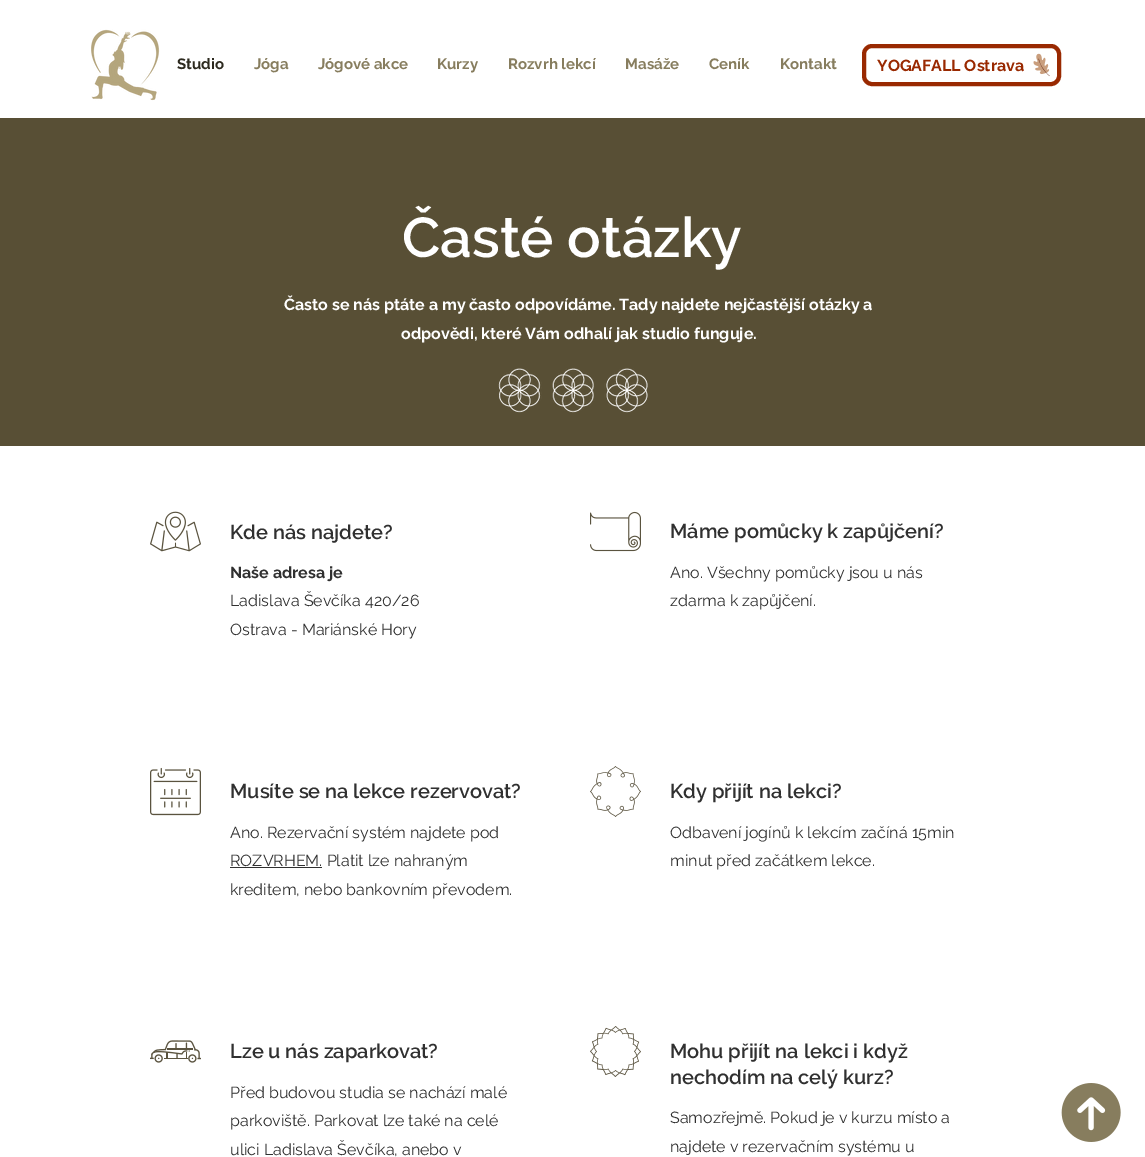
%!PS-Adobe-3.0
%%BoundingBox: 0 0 1145 1157
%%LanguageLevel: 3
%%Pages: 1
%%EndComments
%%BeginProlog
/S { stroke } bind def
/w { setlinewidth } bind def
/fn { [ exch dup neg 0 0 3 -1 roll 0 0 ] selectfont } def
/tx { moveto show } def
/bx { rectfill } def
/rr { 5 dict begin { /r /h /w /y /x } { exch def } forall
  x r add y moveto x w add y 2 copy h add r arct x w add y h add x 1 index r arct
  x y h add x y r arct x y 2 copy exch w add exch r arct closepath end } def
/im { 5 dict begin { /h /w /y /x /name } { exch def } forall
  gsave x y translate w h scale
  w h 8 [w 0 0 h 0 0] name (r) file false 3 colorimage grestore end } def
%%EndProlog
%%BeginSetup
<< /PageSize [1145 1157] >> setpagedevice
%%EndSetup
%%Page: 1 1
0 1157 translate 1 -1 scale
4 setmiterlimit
1 setgray
0 0 1145 1157 bx
(image0.raw) 91 29 69 72 im
/Raleway-Bold 15 fn
0.176 0.165 0.122 setrgbcolor
(Studio) 177 69 tx
0.529 0.49 0.369 setrgbcolor
(Jóga) 254 69 tx
(Jógové akce) 318 69 tx
(Kurzy) 437 69 tx
(Rozvrh lekcí) 508 69 tx
(Masáže) 625 69 tx
(Ceník) 709 69 tx
(Kontakt) 780 69 tx
0.6 0.161 0.004 setrgbcolor
4 w
864 46 195 38 8 rr S
/Raleway-Bold 16 fn
(YOGAFALL Ostrava) 877 71 tx
(image1.raw) 1033 53 17 24 im
0.345 0.31 0.208 setrgbcolor
0 118 1145 328 bx
/Raleway-SemiBold 56 fn
1 setgray
(Časté otázky) 402 257 tx
/Raleway-Bold 16 fn
(Často se nás ptáte a my často odpovídáme. Tady najdete nejčastější otázky a) 284 310 tx
(odpovědi, které Vám odhalí jak studio funguje.) 401 339 tx
(image2.raw) 498 368 150 45 im
(image3.raw) 150 511 51 41 im
/Raleway-SemiBold 20 fn
0.188 setgray
(Kde nás najdete?) 230 539 tx
/Raleway-Bold 16 fn
(Naše adresa je) 230 578 tx
/Raleway-Regular 16 fn
(Ladislava Ševčíka 420/26) 230 606 tx
(Ostrava - Mariánské Hory) 230 635 tx
(image4.raw) 150 767 51 49 im
/Raleway-SemiBold 20 fn
(Musíte se na lekce rezervovat?) 230 798 tx
/Raleway-Regular 16 fn
(Ano. Rezervační systém najdete pod) 230 838 tx
230 867 92 1 bx
(ROZVRHEM. Platit lze nahraným) 230 866 tx
(kreditem, nebo bankovním převodem.) 230 895 tx
(image5.raw) 150 1040 51 23 im
/Raleway-SemiBold 20 fn
(Lze u nás zaparkovat?) 230 1058 tx
/Raleway-Regular 16 fn
(Před budovou studia se nachází malé) 230 1098 tx
(parkoviště. Parkovat lze také na celé) 230 1126 tx
(ulici Ladislava Ševčíka, anebo v) 230 1155 tx
(image6.raw) 590 511 51 41 im
/Raleway-SemiBold 20 fn
(Máme pomůcky k zapůjčení?) 670 538 tx
/Raleway-Regular 16 fn
(Ano. Všechny pomůcky jsou u nás) 670 578 tx
(zdarma k zapůjčení.) 670 606 tx
(image7.raw) 590 766 51 51 im
/Raleway-SemiBold 20 fn
(Kdy přijít na lekci?) 670 798 tx
/Raleway-Regular 16 fn
(Odbavení jogínů k lekcím začíná 15min) 670 838 tx
(minut před začátkem lekce.) 670 866 tx
(image8.raw) 590 1026 51 51 im
/Raleway-SemiBold 20 fn
(Mohu přijít na lekci i když) 670 1058 tx
(nechodím na celý kurz?) 670 1084 tx
/Raleway-Regular 16 fn
(Samozřejmě. Pokud je v kurzu místo a) 670 1123 tx
(najdete v rezervačním systému u) 670 1152 tx
(image9.raw) 1061 1083 60 59 im
showpage
%%EOF
